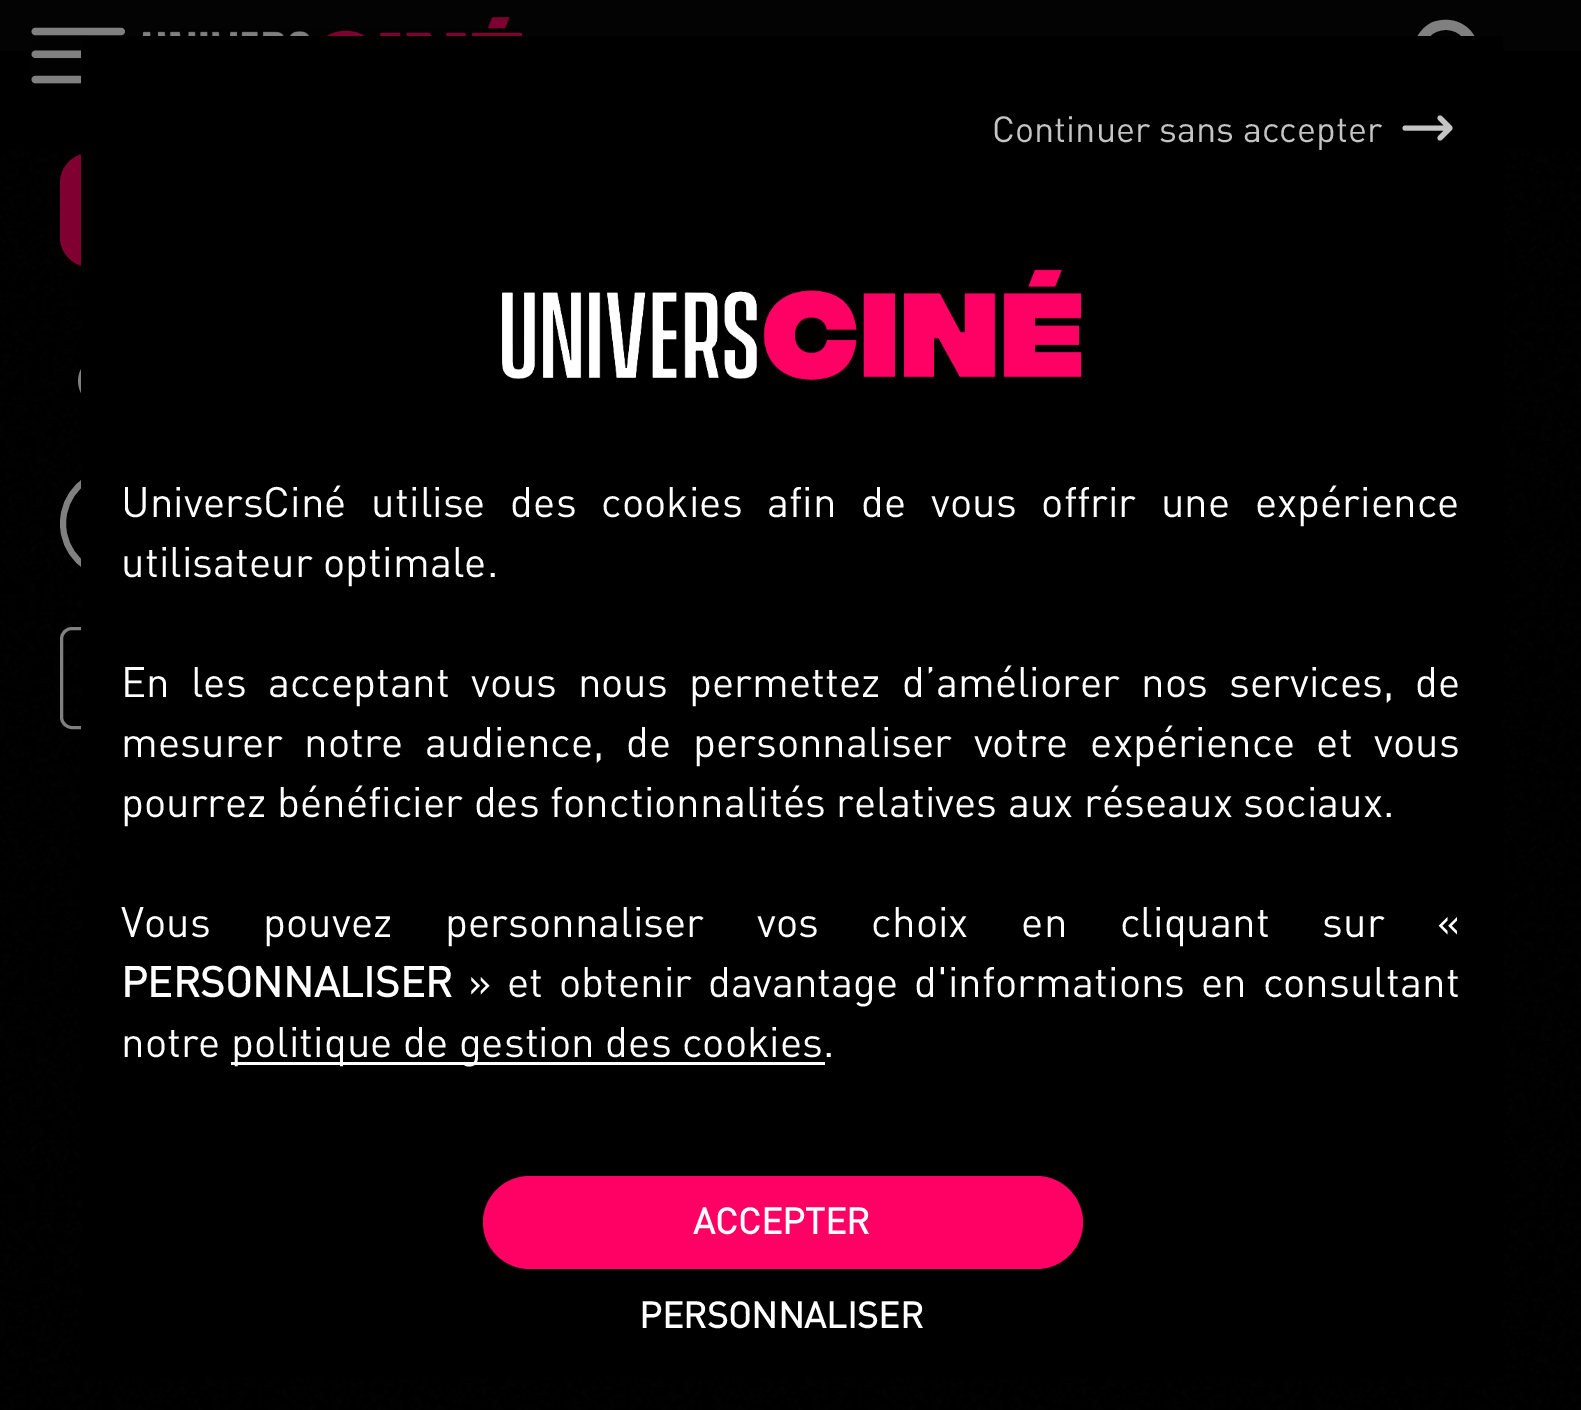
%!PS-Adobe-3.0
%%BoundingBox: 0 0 1581 1410
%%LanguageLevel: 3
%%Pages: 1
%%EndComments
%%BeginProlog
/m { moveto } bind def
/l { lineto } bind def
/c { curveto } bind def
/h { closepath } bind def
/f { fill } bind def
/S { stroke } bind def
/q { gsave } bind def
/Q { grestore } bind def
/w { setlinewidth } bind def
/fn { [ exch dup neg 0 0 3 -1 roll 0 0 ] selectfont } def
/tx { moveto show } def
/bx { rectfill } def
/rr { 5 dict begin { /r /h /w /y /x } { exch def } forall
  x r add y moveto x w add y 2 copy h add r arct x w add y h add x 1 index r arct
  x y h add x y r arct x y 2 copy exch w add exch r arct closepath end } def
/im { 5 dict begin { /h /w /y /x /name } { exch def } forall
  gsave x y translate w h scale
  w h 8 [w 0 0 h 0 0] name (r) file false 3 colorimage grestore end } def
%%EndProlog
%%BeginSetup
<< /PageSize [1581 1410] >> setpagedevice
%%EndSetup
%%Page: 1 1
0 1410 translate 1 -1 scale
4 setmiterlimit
0 setgray
0 0 1581 1410 bx
q 0 0 m 1581 0 l 1581 51 l 0 51 l h clip newpath
<< /ShadingType 2 /ColorSpace /DeviceRGB /Coords [791 0 791 135] /Extend [true true] /Function << /FunctionType 2 /Domain [0 1] /C0 [0.016 0.016 0.016] /C1 [0 0 0] /N 1 >> >> shfill Q
(image0.raw) 31 27 94 57 im
(image1.raw) 143 17 380 19 im
0.502 setgray
1486 83 m 1473 70 l 1484 54 1478 31 1460 23 c 1452 19 1442 19 1433 22 c 1426 25 1421 30 1417 37 c 1401 67 1435 98 1464 80 c 1472 89 l 1476 92 1479 97 1484 94 c 1486 93 1487 92 1488 90 c 1488 88 1488 87 1487 85 c h 1446 75 m 1416 75 1416 30 1446 30 c 1475 30 1475 75 1446 75 c h f
(image3.raw) 0 150 1581 1260 im
0.502 0 0.196 setrgbcolor
60 153 204 114 30 rr f
0 setgray
63 471 264 105 52.5 rr q f Q
0.502 setgray
6 w
S
3 w
61.5 628.5 288 99 10.5 rr S
0 setgray
81 36 1422 1341 bx
/DIN-Regular 36 fn
0.769 setgray
(Continuer sans accepter) 992 142 tx
5 w
1 setlinecap
1 setlinejoin
1440 118 m 1450 128 l 1450 128 m 1440 138 l 1450 128 m 1405 128 l S
(image2.raw) 502 269 580 111 im
/DIN-Regular 42 fn
1 setgray
121 517 m 14.25 0 32 (UniversCiné utilise des cookies afin de vous offrir une expérience) widthshow
(utilisateur optimale.) 121 577 tx
121 697 m 10.75 0 32 (En les acceptant vous nous permettez d’améliorer nos services, de) widthshow
121 757 m 11.25 0 32 (mesurer notre audience, de personnaliser votre expérience et vous) widthshow
(pourrez bénéficier des fonctionnalités relatives aux réseaux sociaux.) 121 817 tx
121 937 m 42.25 0 32 (Vous pouvez personnaliser vos choix en cliquant sur «) widthshow
/DIN-Bold 42 fn
(PERSONNALISER) 121 997 tx
/DIN-Regular 42 fn
468 997 m 5.25 0 32 (» et obtenir davantage d'informations en consultant) widthshow
(notre) 121 1057 tx
231 1062 594 3 bx
(politique de gestion des cookies.) 231 1057 tx
1 0 0.392 setrgbcolor
483 1176 600 93 46.5 rr f
/DIN-Bold 36 fn
1 setgray
(ACCEPTER) 693 1234 tx
(PERSONNALISER) 639 1328 tx
(image4.raw) 78 369 3 24 im
showpage
%%EOF
